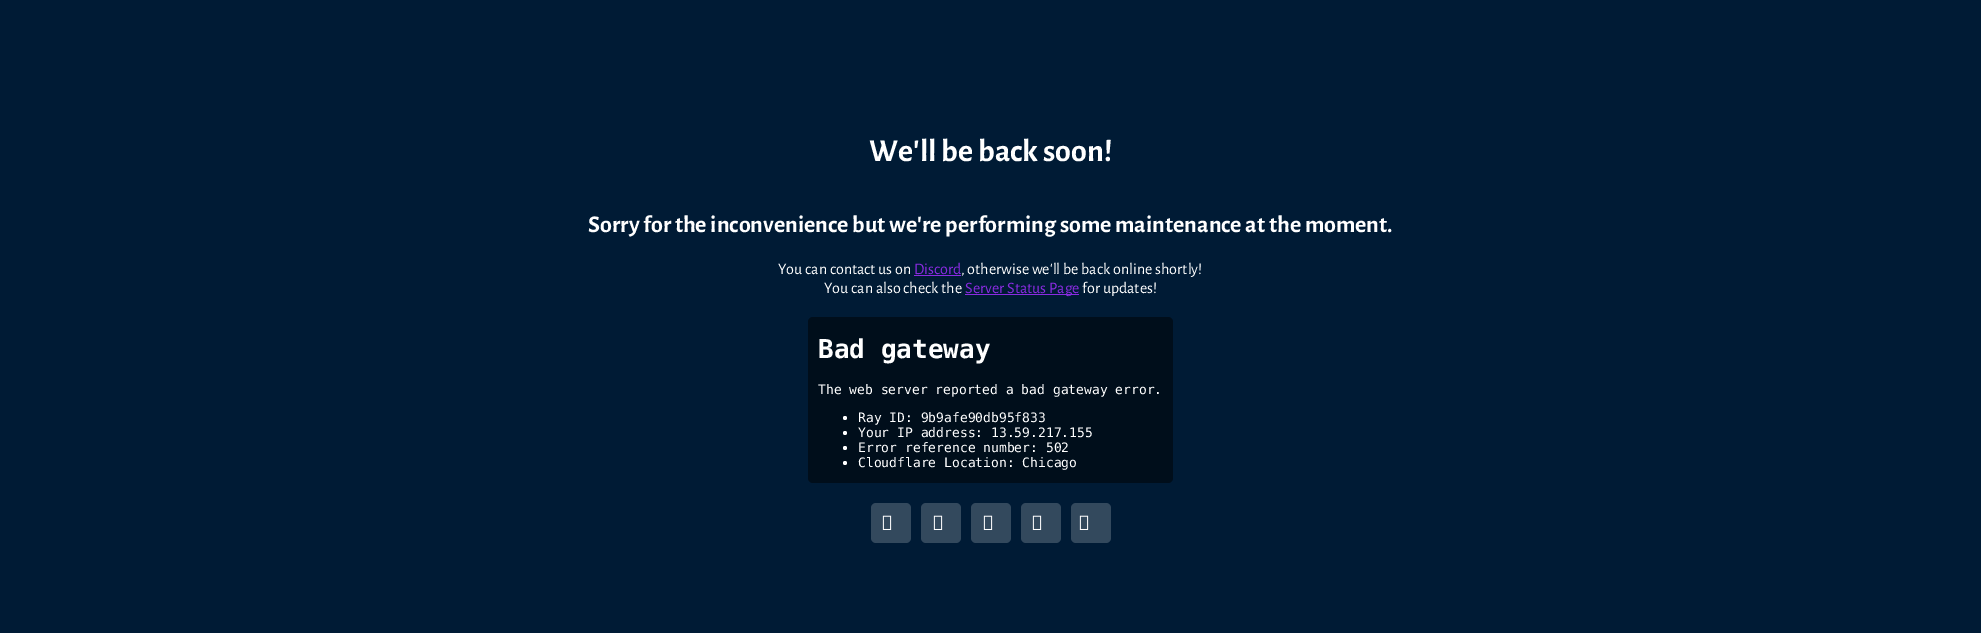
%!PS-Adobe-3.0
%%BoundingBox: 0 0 1981 633
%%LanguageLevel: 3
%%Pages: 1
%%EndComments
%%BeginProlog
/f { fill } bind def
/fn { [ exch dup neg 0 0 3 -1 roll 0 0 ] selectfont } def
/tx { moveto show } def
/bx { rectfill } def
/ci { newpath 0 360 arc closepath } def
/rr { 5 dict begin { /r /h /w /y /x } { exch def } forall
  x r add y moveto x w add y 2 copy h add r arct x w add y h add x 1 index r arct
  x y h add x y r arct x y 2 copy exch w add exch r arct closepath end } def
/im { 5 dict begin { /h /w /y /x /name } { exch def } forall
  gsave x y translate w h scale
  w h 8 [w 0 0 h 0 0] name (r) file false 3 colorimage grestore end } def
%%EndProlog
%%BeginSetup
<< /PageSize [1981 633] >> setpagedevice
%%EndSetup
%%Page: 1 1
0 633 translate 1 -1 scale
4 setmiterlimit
0 0.106 0.208 setrgbcolor
0 0 1981 633 bx
/AlegreyaSans-Bold 32 fn
1 setgray
(We'll be back soon!) 869 161 tx
/AlegreyaSans-Bold 24 fn
(Sorry for the inconvenience but we're performing some maintenance at the moment.) 588 232 tx
/AlegreyaSans-Regular 16 fn
(You can contact us on) 778 274 tx
0.541 0.169 0.886 setrgbcolor
(Discord) 914 274 tx
914 275 47 1 bx
1 setgray
(, otherwise we'll be back online shortly!) 961 274 tx
(You can also check the) 824 293 tx
0.541 0.169 0.886 setrgbcolor
965 294 114 1 bx
(Server Status Page) 965 293 tx
1 setgray
(for updates!) 1082 293 tx
0 0.055 0.106 setrgbcolor
808 317 365 166 5 rr f
/DejaVuSansMono-Bold 26 fn
1 setgray
(Bad gateway) 818 358 tx
/DejaVuSansMono-Regular 13 fn
(The web server reported a bad gateway error.) 818 394 tx
845 418 2 ci f
(Ray ID: 9b9afe90db95f833) 858 422 tx
845 433 2 ci f
(Your IP address: 13.59.217.155) 858 437 tx
845 448 2 ci f
(Error reference number: 502) 858 452 tx
845 463 2 ci f
(Cloudflare Location: Chicago) 858 467 tx
0.2 0.286 0.365 setrgbcolor
871 503 40 40 5 rr f
(image0.raw) 882 515 10 15 im
921 503 40 40 5 rr f
(image0.raw) 933 515 10 15 im
971 503 40 40 5 rr f
(image0.raw) 983 515 10 15 im
1021 503 40 40 5 rr f
(image0.raw) 1032 515 10 15 im
1071 503 40 40 5 rr f
(image0.raw) 1079 515 10 15 im
showpage
%%EOF
